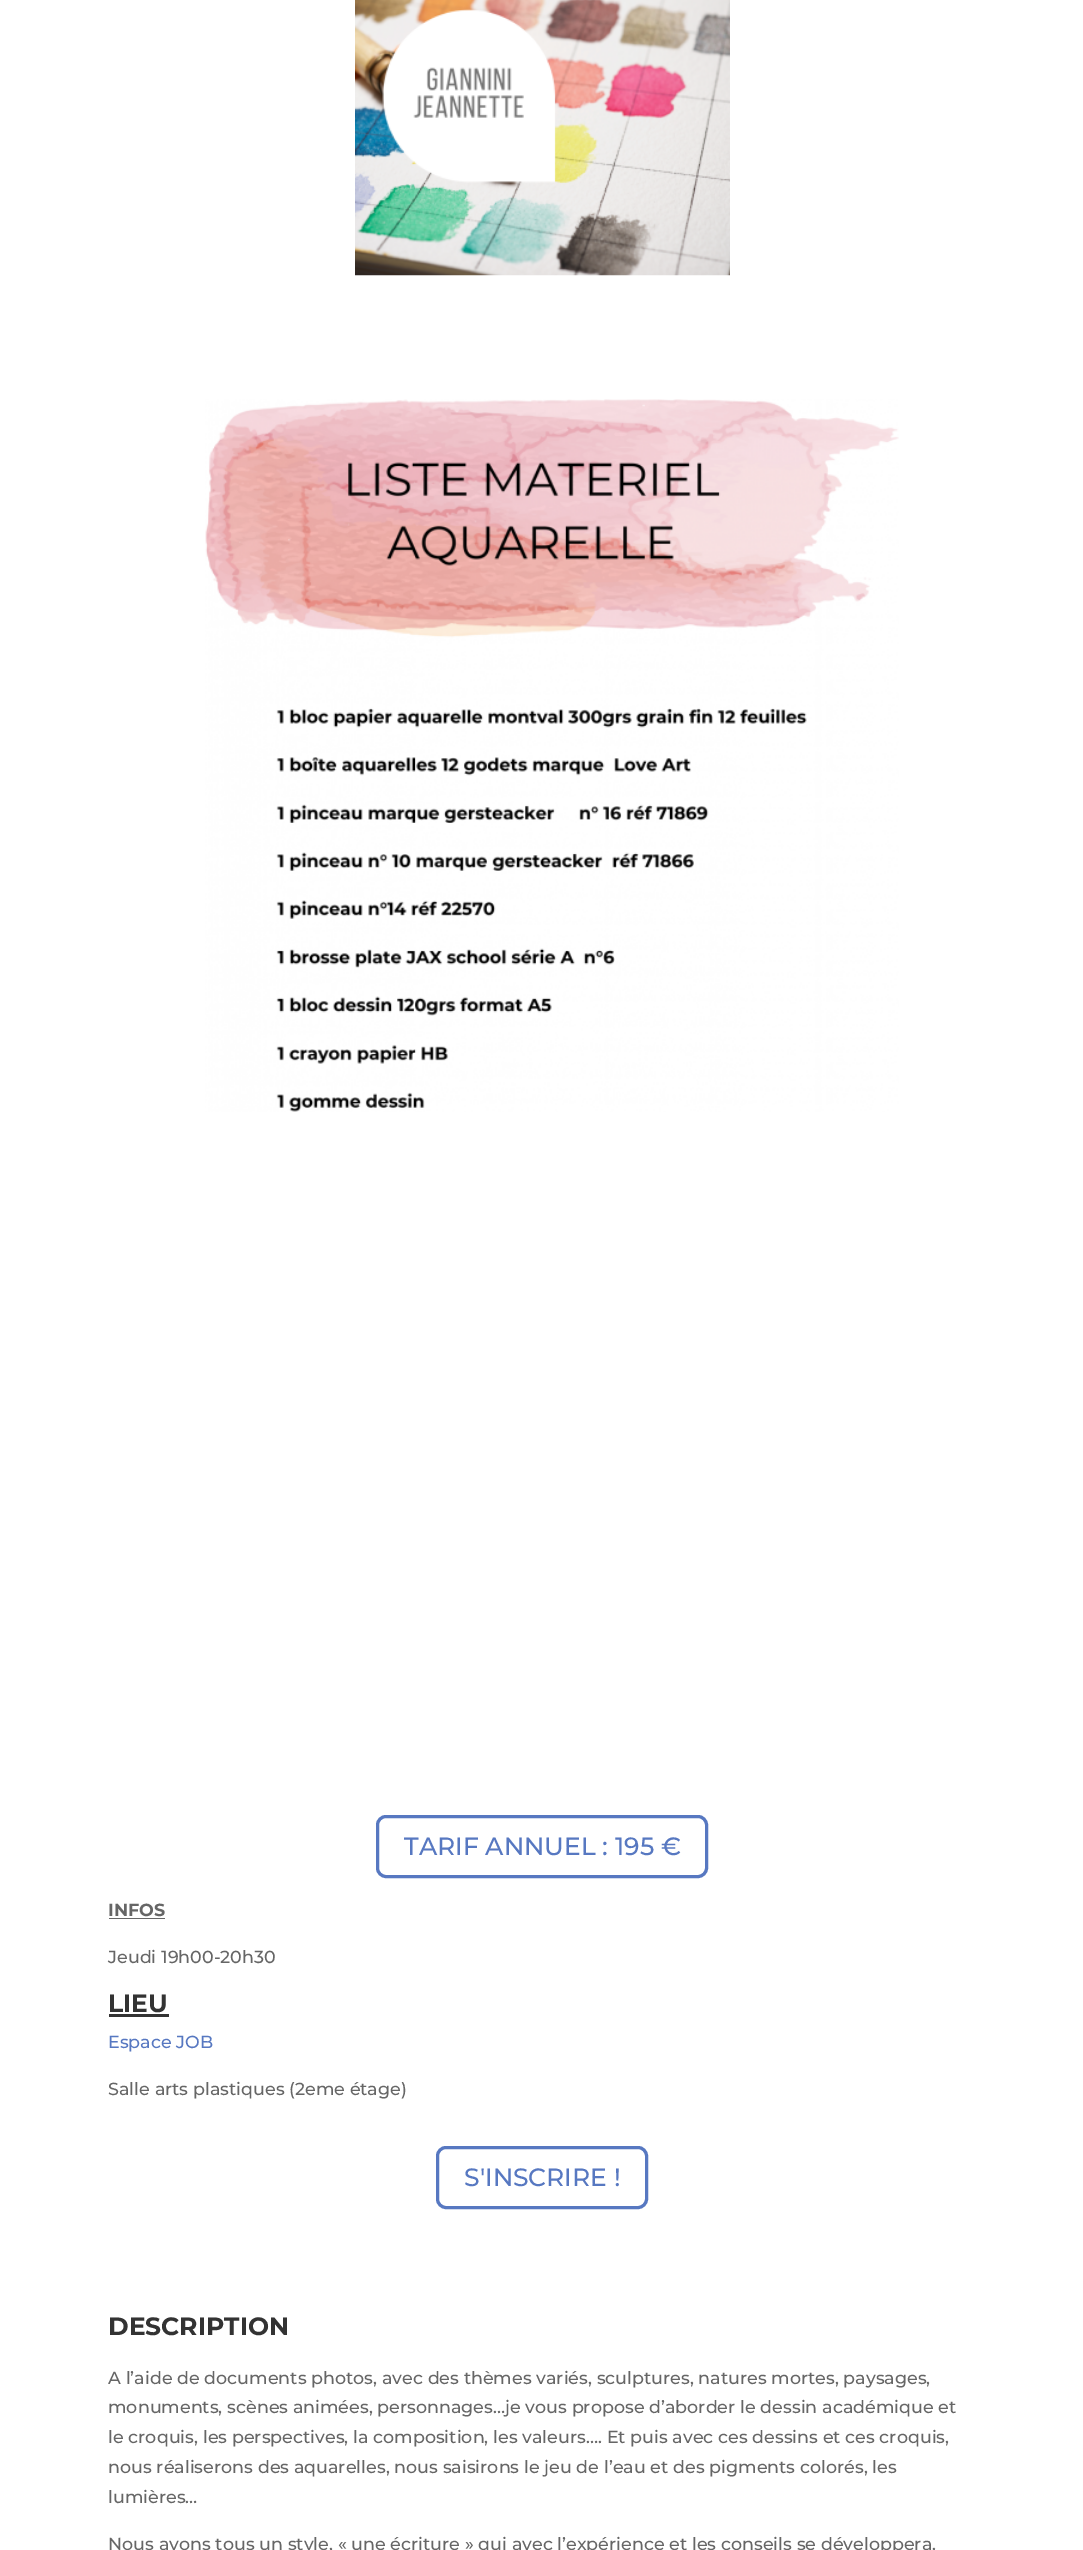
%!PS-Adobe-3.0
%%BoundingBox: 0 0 1083 2550
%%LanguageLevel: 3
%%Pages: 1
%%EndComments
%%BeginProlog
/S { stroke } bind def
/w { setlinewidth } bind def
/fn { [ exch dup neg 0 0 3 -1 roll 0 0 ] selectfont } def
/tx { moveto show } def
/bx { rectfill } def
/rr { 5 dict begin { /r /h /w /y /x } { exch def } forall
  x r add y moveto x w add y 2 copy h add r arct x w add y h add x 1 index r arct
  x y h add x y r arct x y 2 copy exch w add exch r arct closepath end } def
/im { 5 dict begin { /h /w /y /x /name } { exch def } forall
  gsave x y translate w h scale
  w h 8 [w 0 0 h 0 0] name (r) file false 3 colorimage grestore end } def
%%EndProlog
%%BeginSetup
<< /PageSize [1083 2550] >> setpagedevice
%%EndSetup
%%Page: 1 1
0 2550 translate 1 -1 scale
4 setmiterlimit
1 setgray
0 0 1083 2550 bx
(image0.raw) 355 0 375 276 im
(image1.raw) 205 399 694 713 im
0.341 0.471 0.757 setrgbcolor
3 w
377.5 1816.5 329 60 8.5 rr S
/Montserrat-Thin 25 fn
(TARIF ANNUEL : 195 €) 404 1855 tx
/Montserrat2-Thin 17.5 fn
0.4 setgray
(INFOS) 108 1916 tx
109 1918 56 1 bx
/Montserrat-Thin 17.5 fn
(Jeudi 19h00-20h30) 108 1963 tx
/Montserrat2-Thin 25 fn
0.2 setgray
(LIEU) 108 2012 tx
109 2014 60 3 bx
/Montserrat-Thin 17.5 fn
0.341 0.471 0.757 setrgbcolor
(Espace JOB) 108 2048 tx
0.4 setgray
(Salle arts plastiques \(2eme étage\)) 108 2095 tx
0.341 0.471 0.757 setrgbcolor
437.5 2147.5 209 60 8.5 rr S
/Montserrat-Thin 25 fn
(S'INSCRIRE !) 464 2186 tx
/Montserrat2-Thin 25 fn
0.2 setgray
(DESCRIPTION) 108 2335 tx
/Montserrat-Thin 17.5 fn
0.4 setgray
(A l’aide de documents photos, avec des thèmes variés, sculptures, natures mortes, paysages,) 108 2384 tx
(monuments, scènes animées, personnages…je vous propose d’aborder le dessin académique et) 108 2413 tx
(le croquis, les perspectives, la composition, les valeurs…. Et puis avec ces dessins et ces croquis,) 108 2443 tx
(nous réaliserons des aquarelles, nous saisirons le jeu de l’eau et des pigments colorés, les) 108 2473 tx
(lumières…) 108 2503 tx
(Nous avons tous un style, « une écriture » qui avec l’expérience et les conseils se développera.) 108 2550 tx
showpage
%%EOF
